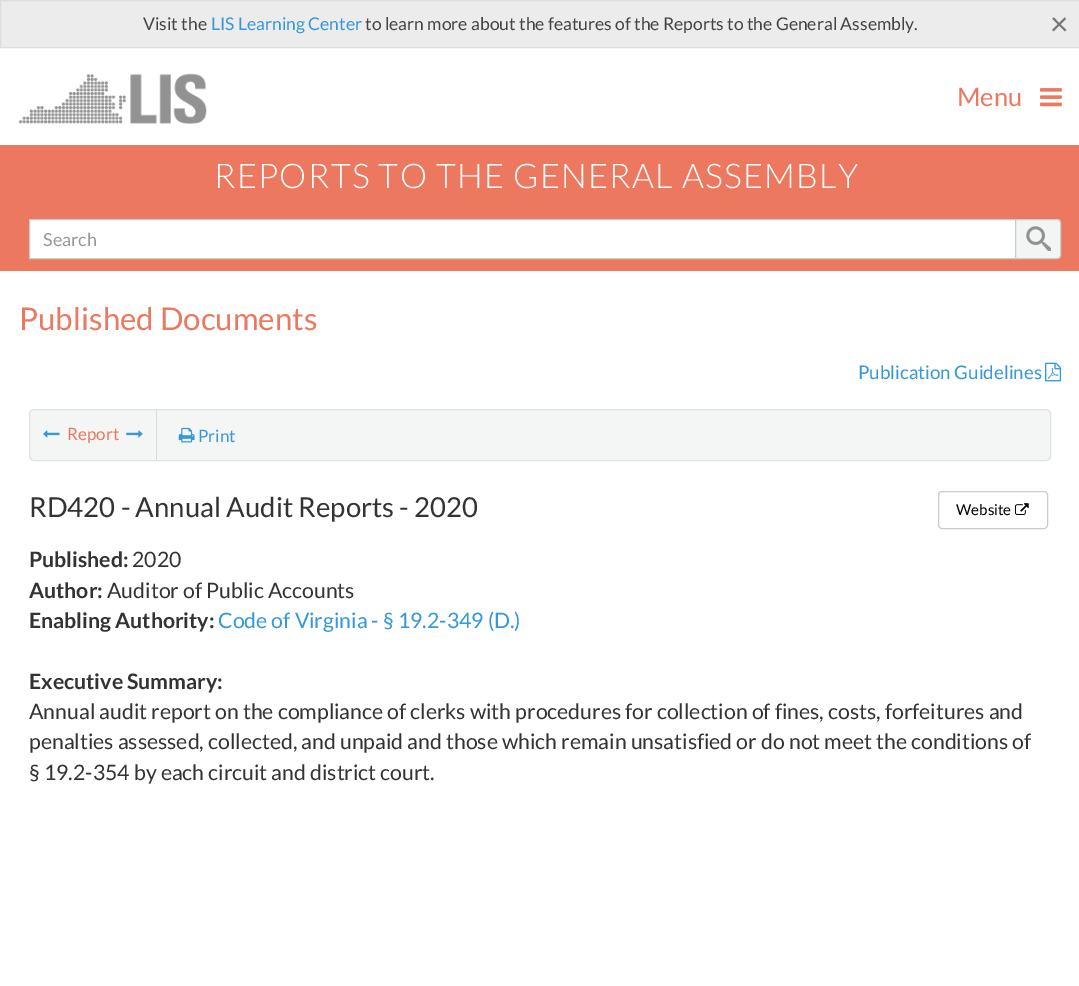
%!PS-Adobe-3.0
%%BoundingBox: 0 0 1079 986
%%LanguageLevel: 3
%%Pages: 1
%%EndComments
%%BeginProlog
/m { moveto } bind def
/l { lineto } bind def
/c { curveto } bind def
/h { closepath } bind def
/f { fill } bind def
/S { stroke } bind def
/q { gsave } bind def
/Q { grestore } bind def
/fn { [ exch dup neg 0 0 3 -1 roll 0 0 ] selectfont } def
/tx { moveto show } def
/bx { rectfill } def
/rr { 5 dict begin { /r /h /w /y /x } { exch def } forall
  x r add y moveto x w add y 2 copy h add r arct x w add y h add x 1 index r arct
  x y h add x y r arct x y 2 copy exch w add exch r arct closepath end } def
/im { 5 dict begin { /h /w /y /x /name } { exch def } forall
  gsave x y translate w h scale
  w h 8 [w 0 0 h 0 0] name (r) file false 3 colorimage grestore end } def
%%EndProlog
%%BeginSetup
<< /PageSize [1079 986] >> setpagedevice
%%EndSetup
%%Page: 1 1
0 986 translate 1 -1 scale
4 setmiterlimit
1 setgray
0 0 1079 986 bx
0.925 setgray
0.5 0.5 m 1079.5 0.5 l 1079.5 47.5 l 0.5 47.5 l h q f Q
0.851 0.878 0.855 setrgbcolor
S
/Lato-Regular 17.5 fn
0.267 setgray
(Visit the) 143 30 tx
0.204 0.596 0.859 setrgbcolor
(LIS Learning Center) 211 30 tx
0.267 setgray
(to learn more about the features of the Reports to the General Assembly.) 365 30 tx
/Lato-Regular 32 fn
0.463 setgray
(×) 1050 35 tx
(image0.raw) 18 73 189 51 im
/Lato-Regular 25.5 fn
0.925 0.471 0.373 setrgbcolor
(Menu) 957 106 tx
(image1.raw) 1040 88 22 19 im
0 145 1079 126 bx
/Lato-Light 34 fn
1 setgray
214 188 m 1.25 0 (REPORTS TO THE GENERAL ASSEMBLY) ashow
29.5 219.5 m 1015.5 219.5 l 1015.5 258.5 l 29.5 258.5 l h q f Q
0.8 setgray
S
/Lato-Regular 18 fn
0.6 setgray
(Search) 43 246 tx
0.953 0.961 0.961 setrgbcolor
1015 219 m 1057 219 l 1059 219 1061 221 1061 223 c 1061 255 l 1061 257 1059 259 1057 259 c 1015 259 l h f
(image2.raw) 1026 226 25 25 im
0.8 setgray
1015.5 219.5 m 1057 219.5 l 1059 219.5 1060.5 221 1060.5 223 c 1060.5 255 l 1060.5 257 1059 258.5 1057 258.5 c 1015.5 258.5 l h S
/Lato-Regular 31.25 fn
0.925 0.471 0.373 setrgbcolor
(Published Documents) 19 330 tx
/Lato-Regular 18.75 fn
0.204 0.596 0.859 setrgbcolor
(Publication Guidelines) 858 379 tx
(image3.raw) 1045 362 17 20 im
0.957 0.961 0.961 setrgbcolor
29.5 409.5 1021 51 4.5 rr q f Q
0.871 0.886 0.89 setrgbcolor
S
0.855 setgray
156 410 1 50 bx
(image4.raw) 43 430 17 8 im
/Lato-Regular 17 fn
0.925 0.471 0.373 setrgbcolor
(Report) 67 440 tx
(image5.raw) 126 430 17 8 im
(image6.raw) 178 427 17 16 im
0.204 0.596 0.859 setrgbcolor
(Print) 198 442 tx
/Lato-Regular 27.5 fn
0.2 setgray
(RD420 - Annual Audit Reports - 2020) 29 517 tx
0.8 setgray
938.5 491.5 109 37 3.5 rr S
/Lato-Regular 15 fn
0 setgray
(Website) 956 515 tx
(image7.raw) 1015 503 14 12 im
/Lato-Bold 21.25 fn
0.2 setgray
(Published:) 29 567 tx
/Lato-Regular 21.25 fn
(2020) 132 567 tx
/Lato-Bold 21.25 fn
(Author:) 29 598 tx
/Lato-Regular 21.25 fn
(Auditor of Public Accounts) 107 598 tx
/Lato-Bold 21.25 fn
(Enabling Authority:) 29 628 tx
/Lato-Regular 21.25 fn
0.204 0.596 0.859 setrgbcolor
(Code of Virginia - § 19.2-349 \(D.\)) 218 628 tx
/Lato-Bold 21.25 fn
0.2 setgray
(Executive Summary:) 29 689 tx
/Lato-Regular 21.25 fn
(Annual audit report on the compliance of clerks with procedures for collection of fines, costs, forfeitures and) 29 719 tx
(penalties assessed, collected, and unpaid and those which remain unsatisfied or do not meet the conditions of) 29 749 tx
(§ 19.2-354 by each circuit and district court.) 29 780 tx
showpage
%%EOF
